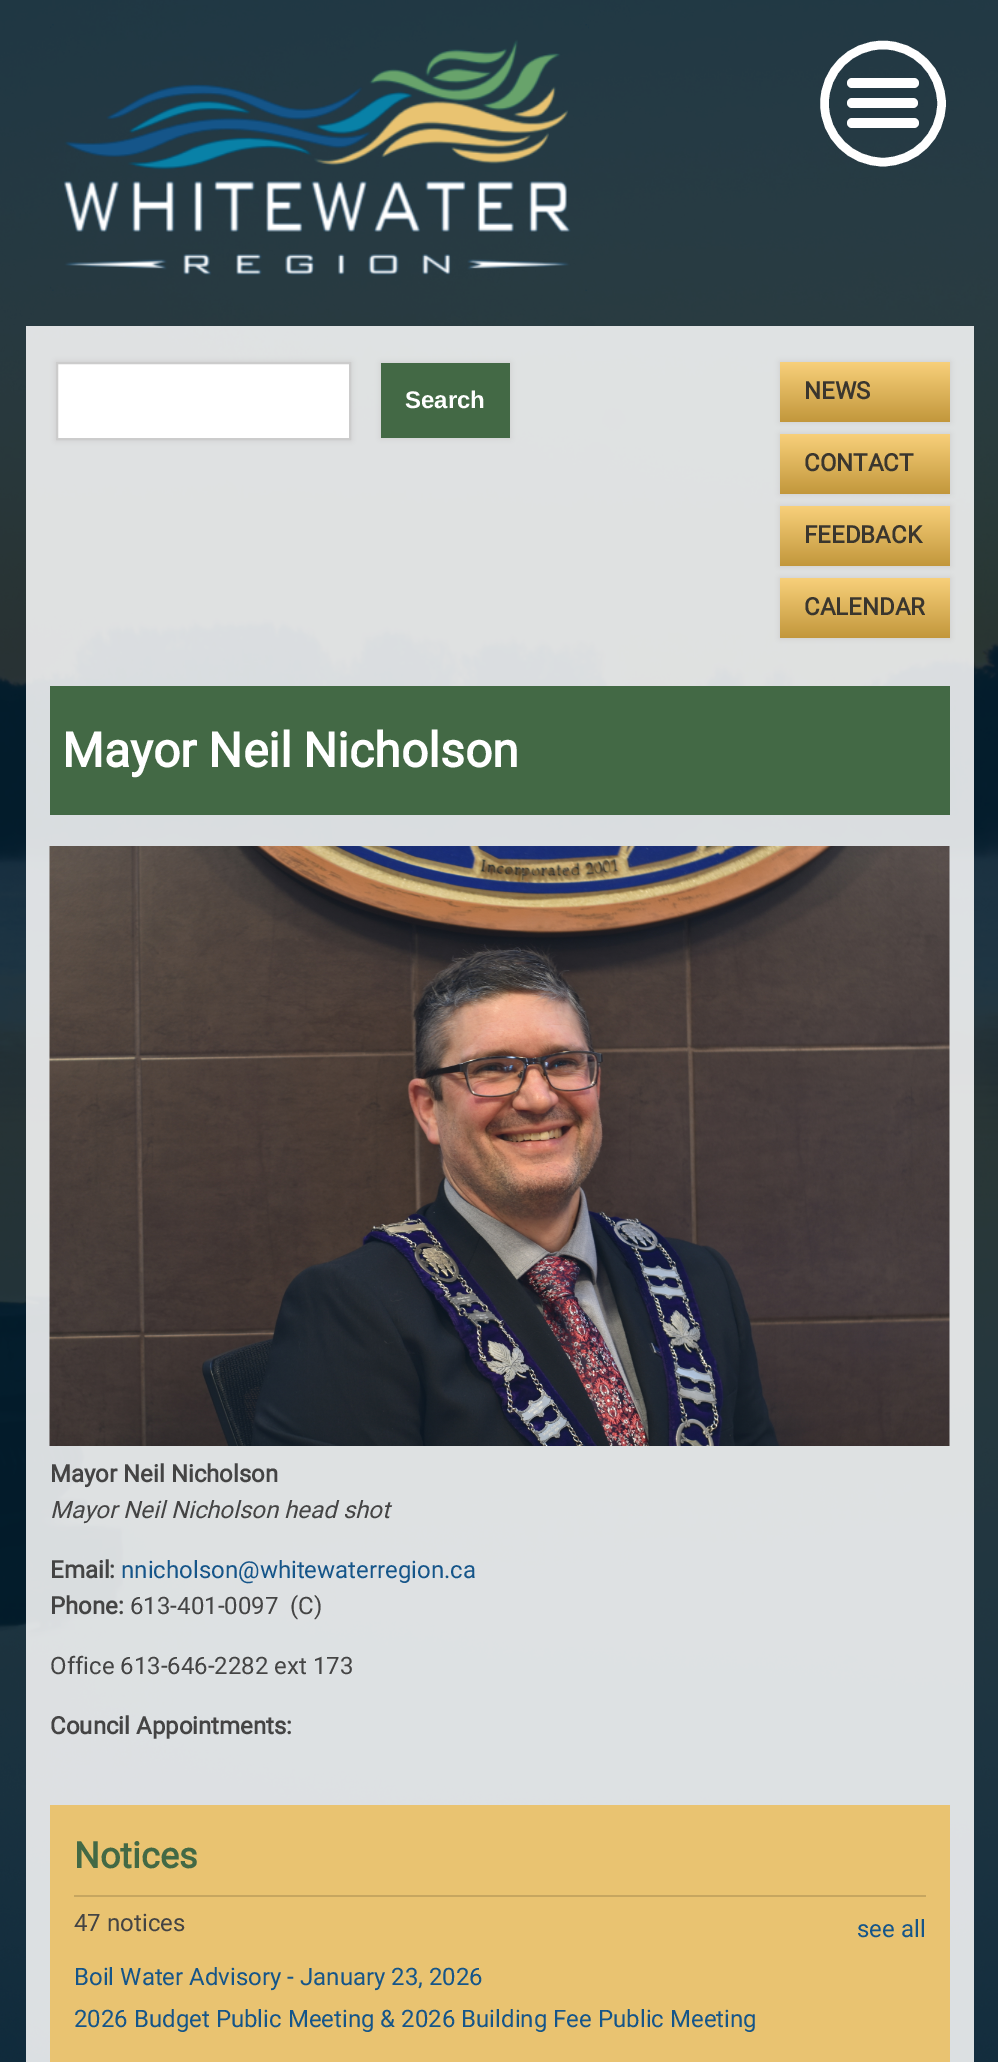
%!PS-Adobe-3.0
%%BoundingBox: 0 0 998 2062
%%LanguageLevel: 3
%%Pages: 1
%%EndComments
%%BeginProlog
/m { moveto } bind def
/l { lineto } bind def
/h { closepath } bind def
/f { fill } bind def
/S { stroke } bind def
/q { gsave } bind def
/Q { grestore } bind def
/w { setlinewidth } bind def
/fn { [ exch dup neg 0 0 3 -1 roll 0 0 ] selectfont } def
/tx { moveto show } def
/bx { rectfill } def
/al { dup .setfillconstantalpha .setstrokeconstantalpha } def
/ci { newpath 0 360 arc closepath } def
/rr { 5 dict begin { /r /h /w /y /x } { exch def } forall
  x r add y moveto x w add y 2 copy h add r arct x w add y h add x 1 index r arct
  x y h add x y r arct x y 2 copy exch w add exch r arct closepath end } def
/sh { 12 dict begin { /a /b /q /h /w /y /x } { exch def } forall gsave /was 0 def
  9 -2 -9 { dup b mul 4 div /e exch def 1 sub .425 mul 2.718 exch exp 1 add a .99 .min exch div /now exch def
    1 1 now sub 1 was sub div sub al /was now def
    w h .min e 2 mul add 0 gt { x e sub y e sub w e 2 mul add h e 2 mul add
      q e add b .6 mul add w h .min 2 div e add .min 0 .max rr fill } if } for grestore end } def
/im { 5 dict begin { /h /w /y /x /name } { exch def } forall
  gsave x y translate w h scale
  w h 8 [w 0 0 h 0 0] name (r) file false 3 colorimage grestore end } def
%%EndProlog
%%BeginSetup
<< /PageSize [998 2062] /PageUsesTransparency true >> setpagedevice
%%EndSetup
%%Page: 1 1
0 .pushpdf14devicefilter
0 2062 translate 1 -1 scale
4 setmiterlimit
1 setgray
0 0 998 2062 bx
(image0.raw) 0 0 998 2062 im
(image1.raw) 50 24 539 267 im
8.5 w
883 103.5 58.5 ci S
847 78 72 10 5 rr f
847 98 71 10 5 rr f
847 118 72 10 5 rr f
0.85 al
26 326 948 1736 bx
1 al
0.8 setgray
56 362 295 78 0 3 1 sh
1 setgray
57 363 m 350 363 l 350 439 l 57 439 l h q f Q
0.8 setgray
2 w
S
381 363 129 75 0 3 1 sh
0.263 0.412 0.271 setrgbcolor
381 363 129 75 bx
/LiberationSans-Bold 24 fn
1 setgray
(Search) 405 408 tx
0.8 setgray
780 362 170 60 0 3 1 sh
q 780 362 m 950 362 l 950 422 l 780 422 l h clip newpath
<< /ShadingType 2 /ColorSpace /DeviceRGB /Coords [865 362 865 422] /Extend [true true] /Function << /FunctionType 2 /Domain [0 1] /C0 [0.973 0.816 0.478] /C1 [0.761 0.592 0.235] /N 1 >> >> shfill Q
/Roboto-Bold 24 fn
0.227 0.212 0.18 setrgbcolor
(NEWS) 804 399 tx
0.8 setgray
780 434 170 60 0 3 1 sh
q 780 434 m 950 434 l 950 494 l 780 494 l h clip newpath
<< /ShadingType 2 /ColorSpace /DeviceRGB /Coords [865 434 865 494] /Extend [true true] /Function << /FunctionType 2 /Domain [0 1] /C0 [0.973 0.816 0.478] /C1 [0.761 0.592 0.235] /N 1 >> >> shfill Q
0.227 0.212 0.18 setrgbcolor
(CONTACT) 804 471 tx
0.8 setgray
780 506 170 60 0 3 1 sh
q 780 506 m 950 506 l 950 566 l 780 566 l h clip newpath
<< /ShadingType 2 /ColorSpace /DeviceRGB /Coords [865 506 865 566] /Extend [true true] /Function << /FunctionType 2 /Domain [0 1] /C0 [0.973 0.816 0.478] /C1 [0.761 0.592 0.235] /N 1 >> >> shfill Q
0.227 0.212 0.18 setrgbcolor
(FEEDBACK) 804 543 tx
0.8 setgray
780 578 170 60 0 3 1 sh
q 780 578 m 950 578 l 950 638 l 780 638 l h clip newpath
<< /ShadingType 2 /ColorSpace /DeviceRGB /Coords [865 578 865 638] /Extend [true true] /Function << /FunctionType 2 /Domain [0 1] /C0 [0.973 0.816 0.478] /C1 [0.761 0.592 0.235] /N 1 >> >> shfill Q
0.227 0.212 0.18 setrgbcolor
(CALENDAR) 804 615 tx
0.263 0.412 0.271 setrgbcolor
50 686 900 129 bx
/Roboto-Bold 48 fn
1 setgray
(Mayor Neil Nicholson) 62 767 tx
(image2.raw) 49 846 901 600 im
/Roboto-Bold 24 fn
0.267 setgray
(Mayor Neil Nicholson) 50 1482 tx
/Roboto-Italic 24 fn
(Mayor Neil Nicholson head shot) 50 1518 tx
/Roboto-Bold 24 fn
(Email:) 50 1578 tx
/Roboto-Regular 24 fn
0.082 0.333 0.537 setrgbcolor
(nnicholson@whitewaterregion.ca) 121 1578 tx
/Roboto-Bold 24 fn
0.267 setgray
(Phone:) 50 1614 tx
/Roboto-Regular 24 fn
(613-401-0097  \(C\)) 130 1614 tx
(Office 613-646-2282 ext 173) 50 1674 tx
/Roboto-Bold 24 fn
(Council Appointments:) 50 1734 tx
0.914 0.765 0.443 setrgbcolor
50 1805 900 257 bx
0.776 0.651 0.376 setrgbcolor
74 1895 852 2 bx
/Roboto-Bold 36 fn
0.263 0.412 0.271 setrgbcolor
(Notices) 74 1868 tx
/Roboto-Regular 24 fn
0.267 setgray
(47 notices) 74 1931 tx
0.082 0.333 0.537 setrgbcolor
(see all) 857 1937 tx
(Boil Water Advisory - January 23, 2026) 74 1985 tx
(2026 Budget Public Meeting & 2026 Building Fee Public Meeting) 74 2027 tx
.poppdf14devicefilter showpage
%%EOF
